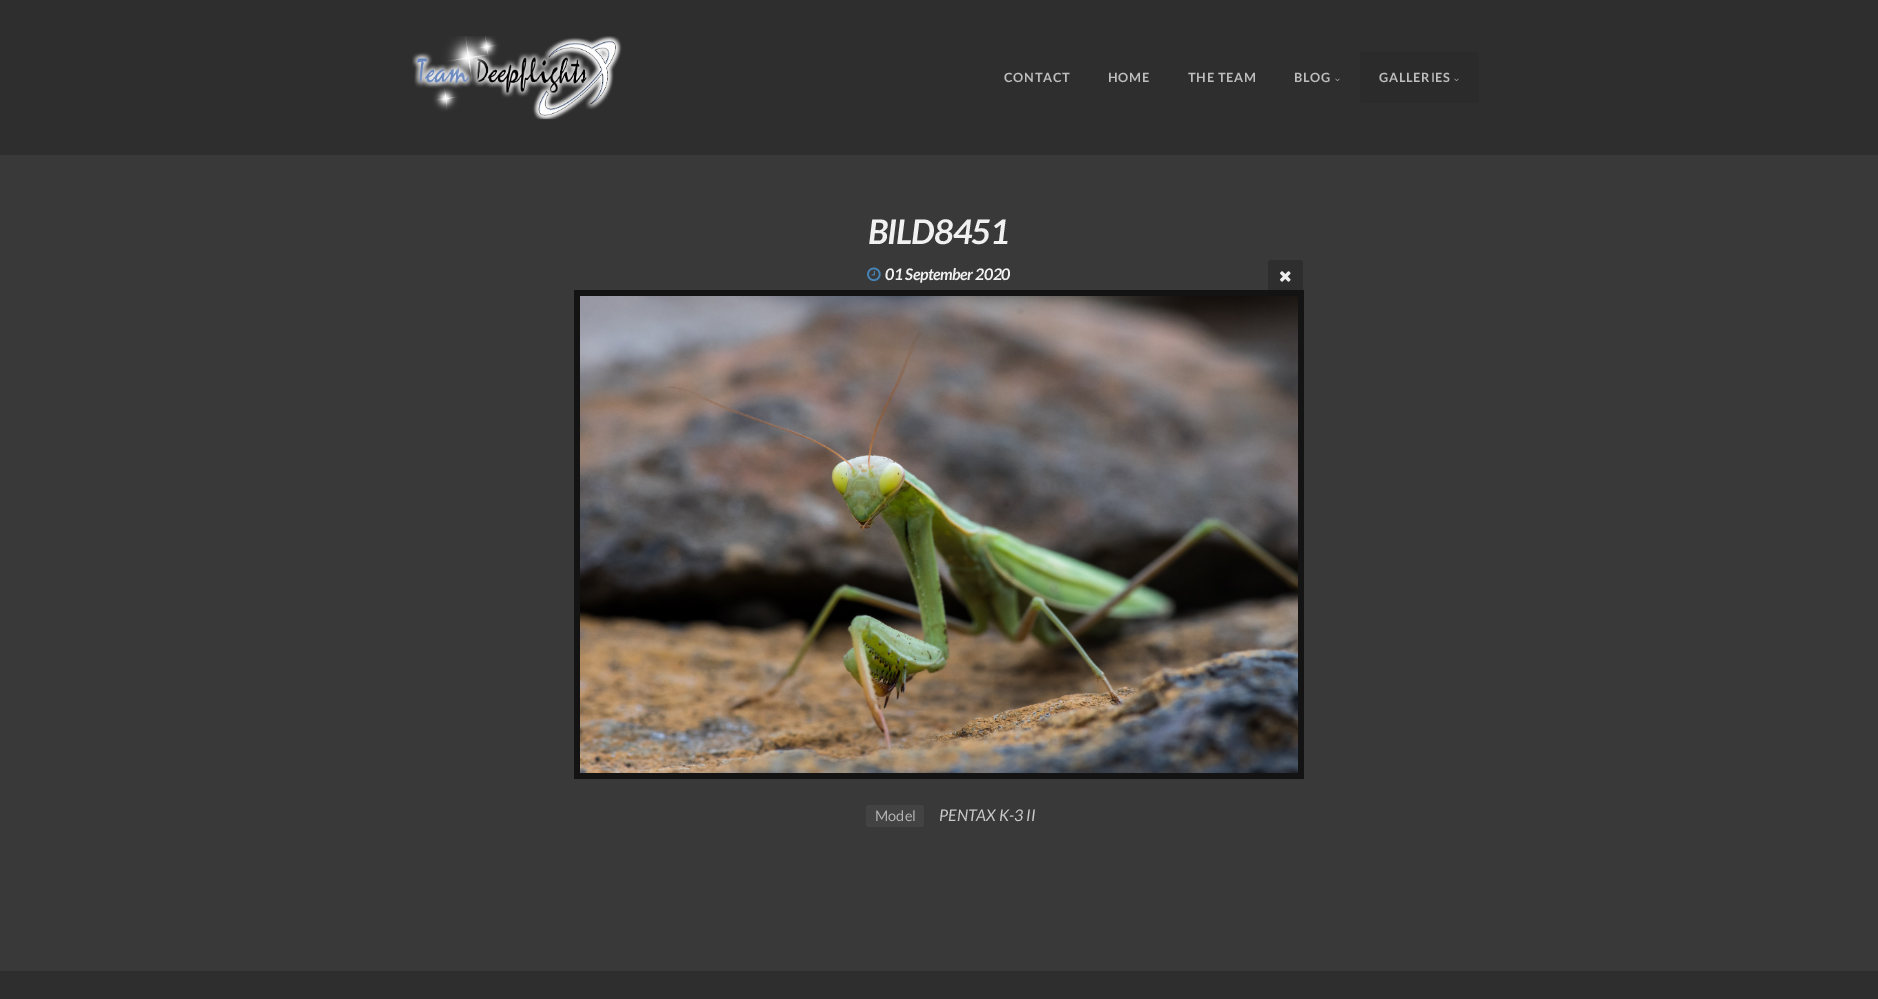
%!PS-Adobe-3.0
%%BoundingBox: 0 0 1878 999
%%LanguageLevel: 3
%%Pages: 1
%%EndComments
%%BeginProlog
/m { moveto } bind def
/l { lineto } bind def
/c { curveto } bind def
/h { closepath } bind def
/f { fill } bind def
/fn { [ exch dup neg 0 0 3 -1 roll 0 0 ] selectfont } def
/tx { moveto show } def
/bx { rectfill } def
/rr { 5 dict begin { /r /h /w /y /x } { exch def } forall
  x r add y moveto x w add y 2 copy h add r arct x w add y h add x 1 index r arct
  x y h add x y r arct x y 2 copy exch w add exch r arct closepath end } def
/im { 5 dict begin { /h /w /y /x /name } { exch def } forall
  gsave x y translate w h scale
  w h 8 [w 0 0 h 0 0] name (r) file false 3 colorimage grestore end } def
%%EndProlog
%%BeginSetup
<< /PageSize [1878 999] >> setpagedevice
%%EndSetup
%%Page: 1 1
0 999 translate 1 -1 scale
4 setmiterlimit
0.18 setgray
0 0 1878 999 bx
0.224 setgray
0 155 1878 816 bx
(image0.raw) 412 36 210 84 im
/Lato-Bold 12.75 fn
0.745 setgray
1004 82 m 0.75 0 (CONTACT) ashow
1108 82 m 0.75 0 (HOME) ashow
1188 82 m 0.75 0 (THE TEAM) ashow
1294 82 m 0.75 0 (BLOG) ashow
(image1.raw) 1335 78 5 3 im
0.169 setgray
1360 52 119 51 3 rr f
0.745 setgray
1379 82 m 0.75 0 (GALLERIES) ashow
(image2.raw) 1454 78 5 4 im
/Lato-BoldItalic 34 fn
0.945 setgray
868 244 m -1 0 (BILD8451) ashow
(image3.raw) 867 267 14 15 im
/Lato-BoldItalic 16 fn
885 280 m -0.5 0 (01 September 2020) ashow
0.18 setgray
1271 260 m 1300 260 l 1301.5 260 1303 261.5 1303 263 c 1303 290 l 1268 290 l 1268 263 l 1268 261.5 1269.5 260 1271 260 c h f
(image4.raw) 1280 271 11 11 im
0.075 setgray
574 290 730 489 bx
(image5.raw) 580 296 718 477 im
0.263 setgray
866 805 58 22 3 rr f
/Lato-Regular 14.5 fn
0.702 setgray
(Model) 875 821 tx
/Lato-Italic 16 fn
0.792 setgray
(PENTAX K-3 II) 939 821 tx
showpage
%%EOF
